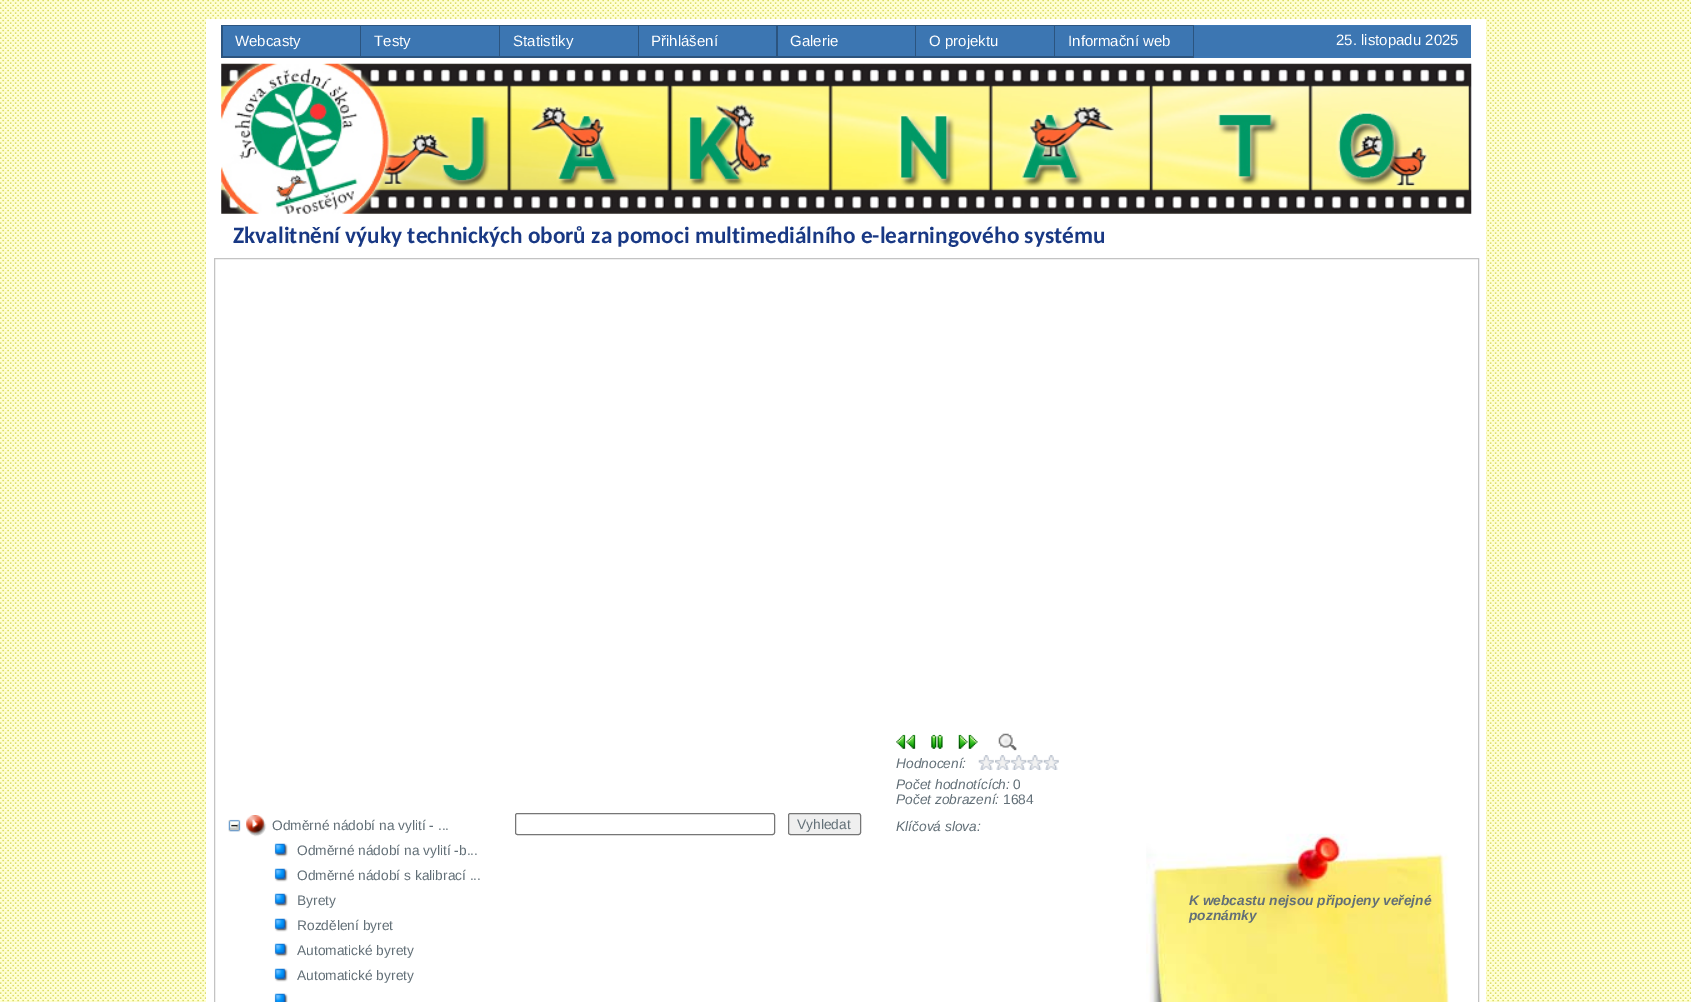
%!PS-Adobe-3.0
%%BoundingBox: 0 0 1691 1002
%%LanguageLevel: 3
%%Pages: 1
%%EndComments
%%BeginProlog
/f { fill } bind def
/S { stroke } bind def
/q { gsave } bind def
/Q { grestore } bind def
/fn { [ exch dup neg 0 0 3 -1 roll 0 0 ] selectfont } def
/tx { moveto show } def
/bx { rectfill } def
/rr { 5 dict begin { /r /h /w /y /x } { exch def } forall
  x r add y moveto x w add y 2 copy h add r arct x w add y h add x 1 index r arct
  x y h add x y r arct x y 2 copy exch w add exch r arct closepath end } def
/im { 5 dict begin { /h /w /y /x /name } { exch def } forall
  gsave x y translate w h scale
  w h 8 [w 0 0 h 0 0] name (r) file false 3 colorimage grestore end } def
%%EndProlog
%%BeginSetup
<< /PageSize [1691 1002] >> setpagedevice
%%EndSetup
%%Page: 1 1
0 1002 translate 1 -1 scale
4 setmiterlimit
1 setgray
0 0 1691 1002 bx
(image0.raw) 0 0 1691 1002 im
206 19 1280 983 bx
0.235 0.463 0.698 setrgbcolor
1194 25 277 33 bx
0.169 0.329 0.498 setrgbcolor
221 25 973 33 bx
0.235 0.463 0.698 setrgbcolor
223 26 137 30 bx
/LiberationSans-Regular 15 fn
1 setgray
(Webcasty) 235 46 tx
0.235 0.463 0.698 setrgbcolor
361 26 138 30 bx
1 setgray
(Testy) 374 46 tx
0.235 0.463 0.698 setrgbcolor
500 26 138 30 bx
1 setgray
(Statistiky) 513 46 tx
0.235 0.463 0.698 setrgbcolor
639 26 137 30 bx
1 setgray
(Přihlášení) 651 46 tx
0.235 0.463 0.698 setrgbcolor
778 26 137 30 bx
1 setgray
(Galerie) 790 46 tx
0.235 0.463 0.698 setrgbcolor
916 26 138 30 bx
1 setgray
(O projektu) 929 46 tx
0.235 0.463 0.698 setrgbcolor
1055 26 138 30 bx
1 setgray
(Informační web) 1068 46 tx
(25. listopadu 2025) 1336 45 tx
(image1.raw) 221 63 1251 151 im
/Carlito-Bold 23.35 fn
0.094 0.22 0.518 setrgbcolor
(Zkvalitnění výuky technických oborů za pomoci multimediálního e-learningového systému) 233 243 tx
0.765 setgray
214.5 258.5 1264 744 rectstroke
(image2.raw) 228 819 13 13 im
(image3.raw) 246 815 21 22 im
/LiberationSans-Regular 13.75 fn
0.384 0.435 0.467 setrgbcolor
(Odměrné nádobí na vylití - ...) 272 830 tx
(image4.raw) 274 843 14 14 im
(Odměrné nádobí na vylití -b...) 297 855 tx
(image4.raw) 274 868 14 14 im
(Odměrné nádobí s kalibrací ...) 297 880 tx
(image4.raw) 274 893 14 14 im
(Byrety) 297 905 tx
(image4.raw) 274 918 14 14 im
(Rozdělení byret) 297 930 tx
(image4.raw) 274 943 14 14 im
(Automatické byrety) 297 955 tx
(image4.raw) 274 968 14 14 im
(Automatické byrety) 297 980 tx
(image5.raw) 274 993 14 9 im
0.463 setgray
515.5 813.5 259 21 2 rr S
0.937 setgray
788.5 813.5 72 21 2 rr q f Q
0.463 setgray
S
0.384 0.435 0.467 setrgbcolor
(Vyhledat) 797 829 tx
(image6.raw) 896 734 20 15 im
(image7.raw) 931 734 12 15 im
(image8.raw) 958 734 20 15 im
(image9.raw) 998 733 19 18 im
/LiberationSans-Italic 13.75 fn
(Hodnocení:) 896 768 tx
(image10.raw) 978 755 16 15 im
(image11.raw) 995 755 16 15 im
(image12.raw) 1011 755 16 15 im
(image13.raw) 1027 755 16 15 im
(image14.raw) 1043 755 16 15 im
(Počet hodnotících:) 896 789 tx
/LiberationSans-Regular 13.75 fn
(0) 1013 789 tx
/LiberationSans-Italic 13.75 fn
(Počet zobrazení:) 896 804 tx
/LiberationSans-Regular 13.75 fn
(1684) 1003 804 tx
/LiberationSans-Italic 13.75 fn
(Klíčová slova:) 896 831 tx
(image15.raw) 1146 833 303 169 im
/LiberationSans-BoldItalic 13.75 fn
(K webcastu nejsou připojeny veřejné) 1189 905 tx
(poznámky) 1189 920 tx
showpage
%%EOF
